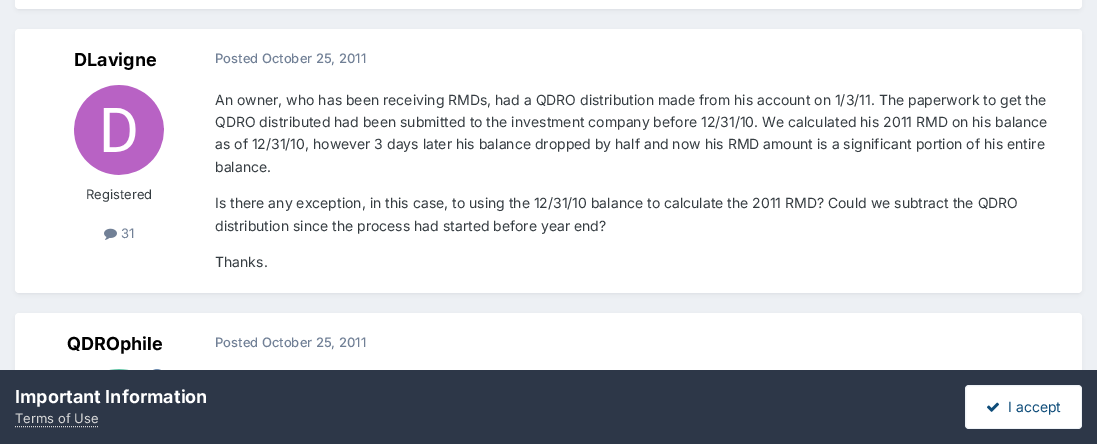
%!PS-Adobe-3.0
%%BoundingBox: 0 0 1097 444
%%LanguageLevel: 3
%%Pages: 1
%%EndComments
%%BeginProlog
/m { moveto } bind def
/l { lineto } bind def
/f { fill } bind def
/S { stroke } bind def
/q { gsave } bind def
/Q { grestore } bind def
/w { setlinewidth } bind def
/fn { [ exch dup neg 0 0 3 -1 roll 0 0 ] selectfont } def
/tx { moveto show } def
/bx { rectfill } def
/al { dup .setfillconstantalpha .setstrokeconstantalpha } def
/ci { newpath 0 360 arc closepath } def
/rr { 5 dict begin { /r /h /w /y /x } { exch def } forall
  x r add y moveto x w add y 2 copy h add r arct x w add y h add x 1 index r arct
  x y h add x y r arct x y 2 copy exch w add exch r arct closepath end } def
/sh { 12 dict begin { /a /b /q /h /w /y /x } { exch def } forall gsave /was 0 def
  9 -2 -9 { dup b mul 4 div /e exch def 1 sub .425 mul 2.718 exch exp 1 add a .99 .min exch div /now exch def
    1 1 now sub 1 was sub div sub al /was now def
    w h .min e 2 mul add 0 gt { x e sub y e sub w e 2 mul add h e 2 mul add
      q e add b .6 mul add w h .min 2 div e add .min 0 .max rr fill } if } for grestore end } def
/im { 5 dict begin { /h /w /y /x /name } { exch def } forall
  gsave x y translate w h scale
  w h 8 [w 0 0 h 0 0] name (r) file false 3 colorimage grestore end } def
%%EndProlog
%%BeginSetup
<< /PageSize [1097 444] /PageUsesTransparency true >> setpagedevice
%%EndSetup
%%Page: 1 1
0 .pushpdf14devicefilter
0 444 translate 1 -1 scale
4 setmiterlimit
0.929 0.941 0.957 setrgbcolor
0 0 1097 444 bx
0.176 0.216 0.282 setrgbcolor
16 -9 1065 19 3 2 0.1 sh
1 setgray
15 -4 1067 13 4 rr f
0.176 0.216 0.282 setrgbcolor
16 32 1065 262 3 2 0.1 sh
1 setgray
15 29 1067 264 4 rr f
/Inter-Bold 18 fn
0 setgray
(DLavigne) 74 66 tx
(image0.raw) 74 85 90 90 im
/Inter-Regular 13 fn
0.208 0.235 0.255 setrgbcolor
(Registered) 86 199 tx
(image1.raw) 104 228 13 12 im
0.443 0.502 0.588 setrgbcolor
(31) 121 238 tx
/Inter-Medium 13 fn
(Posted October 25, 2011) 215 63 tx
/Inter-Regular 14 fn
0.208 0.235 0.255 setrgbcolor
(An owner, who has been receiving RMDs, had a QDRO distribution made from his account on 1/3/11. The paperwork to get the) 215 105 tx
(QDRO distributed had been submitted to the investment company before 12/31/10. We calculated his 2011 RMD on his balance) 215 127 tx
(as of 12/31/10, however 3 days later his balance dropped by half and now his RMD amount is a significant portion of his entire) 215 149 tx
(balance.) 215 172 tx
(Is there any exception, in this case, to using the 12/31/10 balance to calculate the 2011 RMD? Could we subtract the QDRO) 215 208 tx
(distribution since the process had started before year end?) 215 231 tx
(Thanks.) 215 267 tx
0.176 0.216 0.282 setrgbcolor
16 316 1065 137 3 2 0.1 sh
1 setgray
15 313 1067 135 4 rr f
/Inter-Bold 18 fn
0 setgray
(QDROphile) 67 350 tx
(image2.raw) 109 369 20 1 im
0.239 0.396 0.58 setrgbcolor
157 380 12 ci q f Q
1 setgray
2 w
S
/Inter-Medium 13 fn
0.443 0.502 0.588 setrgbcolor
(Posted October 25, 2011) 215 347 tx
0.176 0.216 0.282 setrgbcolor
0 370 1097 74 bx
/Inter-Bold 18 fn
1 setgray
(Important Information) 15 403 tx
/Inter-Regular 13 fn
0.855 setgray
(Terms of Use) 15 423 tx
1 w
[1 1] 0 setdash
15 426.5 m 98 426.5 l S
1 setgray
965 385 117 44 4 rr f
0.07 al
0.055 0.298 0.475 setrgbcolor
[] 0 setdash
965.5 385.5 116 43 3.5 rr S
1 al
(image3.raw) 987 402 12 10 im
/Inter-Regular 14 fn
(I accept) 1008 412 tx
.poppdf14devicefilter showpage
%%EOF
